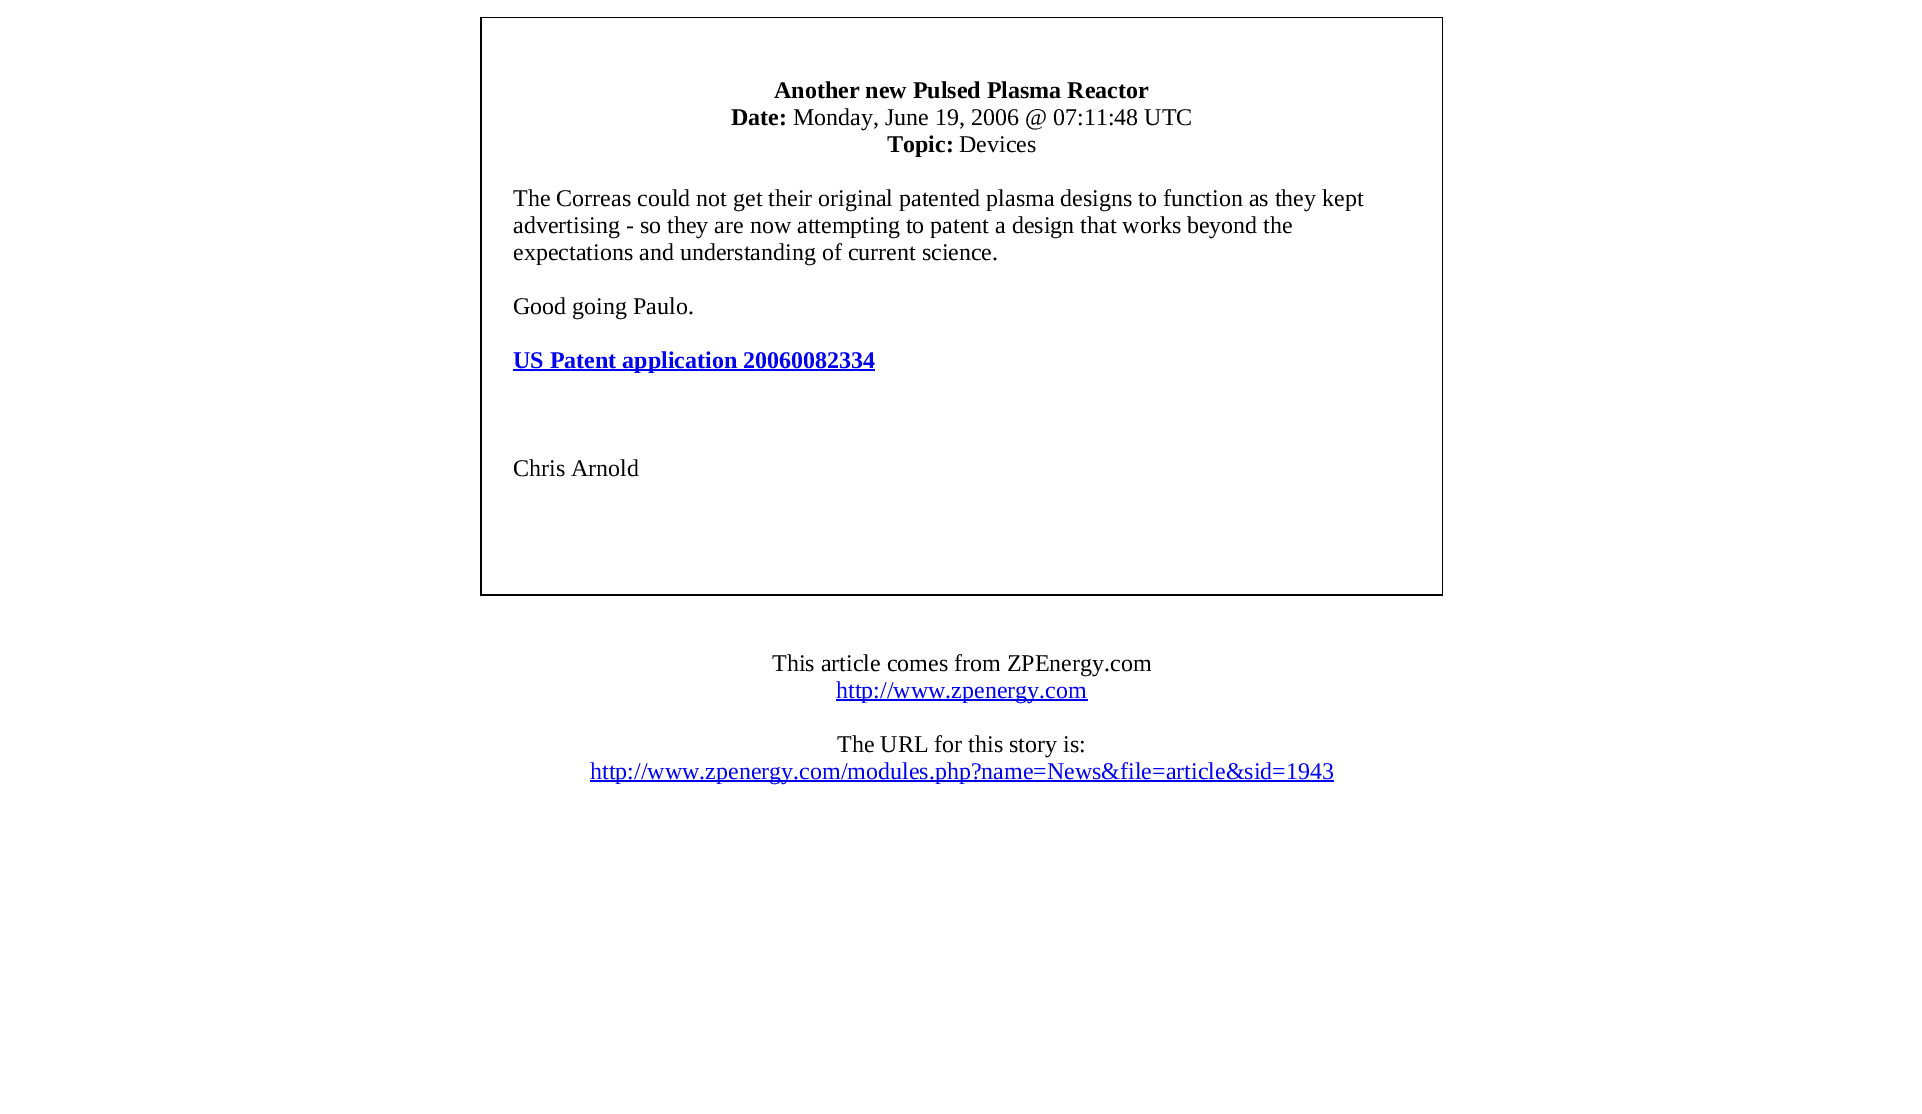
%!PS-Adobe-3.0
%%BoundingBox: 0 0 1922 1114
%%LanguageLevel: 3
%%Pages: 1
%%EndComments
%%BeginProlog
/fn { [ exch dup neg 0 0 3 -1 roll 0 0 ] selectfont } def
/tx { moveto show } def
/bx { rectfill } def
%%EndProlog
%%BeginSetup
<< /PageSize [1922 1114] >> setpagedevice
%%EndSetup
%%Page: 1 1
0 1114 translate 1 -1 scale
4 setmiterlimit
1 setgray
0 0 1922 1114 bx
0 setgray
480 17 963 579 bx
1 setgray
482 18 960 576 bx
/LiberationSerif-Bold 24 fn
0 setgray
(Another new Pulsed Plasma Reactor) 774 98 tx
(Date:) 731 125 tx
/LiberationSerif-Regular 24 fn
(Monday, June 19, 2006 @ 07:11:48 UTC) 793 125 tx
/LiberationSerif-Bold 24 fn
(Topic:) 887 152 tx
/LiberationSerif-Regular 24 fn
(Devices) 959 152 tx
(The Correas could not get their original patented plasma designs to function as they kept) 513 206 tx
(advertising - so they are now attempting to patent a design that works beyond the) 513 233 tx
(expectations and understanding of current science.) 513 260 tx
(Good going Paulo.) 513 314 tx
0 0 0.933 setrgbcolor
513 369 362 2 bx
/LiberationSerif-Bold 24 fn
(US Patent application 20060082334) 513 368 tx
/LiberationSerif-Regular 24 fn
0 setgray
(Chris Arnold) 513 476 tx
(This article comes from ZPEnergy.com) 772 671 tx
0 0 0.933 setrgbcolor
836 699 252 2 bx
(http://www.zpenergy.com) 836 698 tx
0 setgray
(The URL for this story is:) 837 752 tx
0 0 0.933 setrgbcolor
590 780 744 2 bx
(http://www.zpenergy.com/modules.php?name=News&file=article&sid=1943) 590 779 tx
showpage
%%EOF
